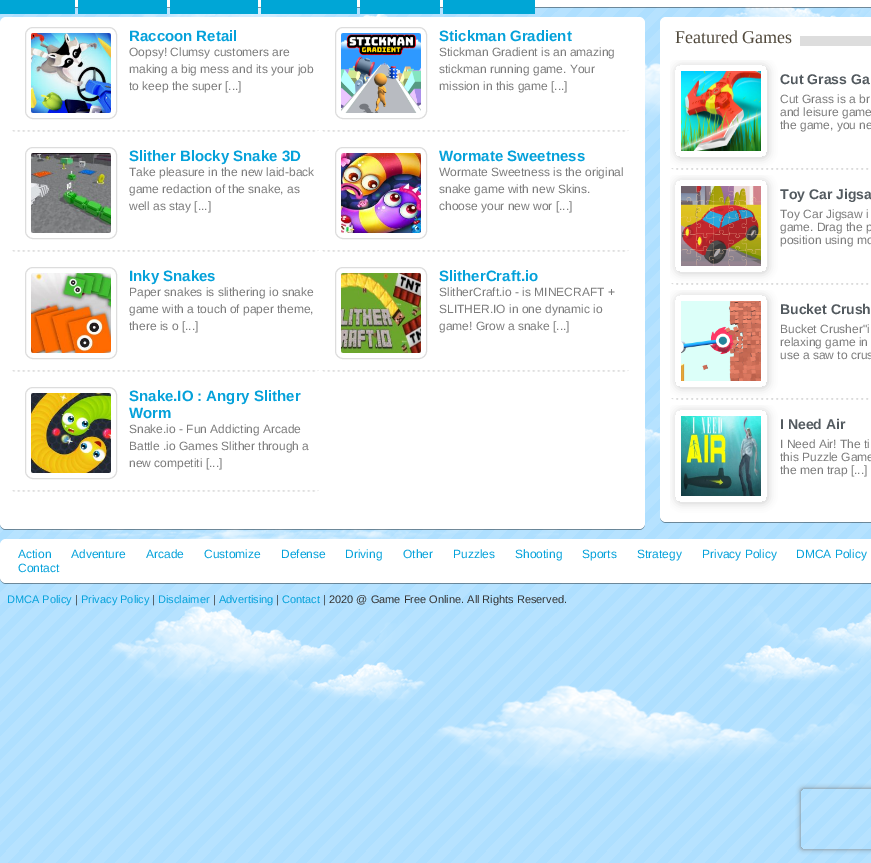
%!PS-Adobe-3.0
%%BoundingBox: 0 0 871 863
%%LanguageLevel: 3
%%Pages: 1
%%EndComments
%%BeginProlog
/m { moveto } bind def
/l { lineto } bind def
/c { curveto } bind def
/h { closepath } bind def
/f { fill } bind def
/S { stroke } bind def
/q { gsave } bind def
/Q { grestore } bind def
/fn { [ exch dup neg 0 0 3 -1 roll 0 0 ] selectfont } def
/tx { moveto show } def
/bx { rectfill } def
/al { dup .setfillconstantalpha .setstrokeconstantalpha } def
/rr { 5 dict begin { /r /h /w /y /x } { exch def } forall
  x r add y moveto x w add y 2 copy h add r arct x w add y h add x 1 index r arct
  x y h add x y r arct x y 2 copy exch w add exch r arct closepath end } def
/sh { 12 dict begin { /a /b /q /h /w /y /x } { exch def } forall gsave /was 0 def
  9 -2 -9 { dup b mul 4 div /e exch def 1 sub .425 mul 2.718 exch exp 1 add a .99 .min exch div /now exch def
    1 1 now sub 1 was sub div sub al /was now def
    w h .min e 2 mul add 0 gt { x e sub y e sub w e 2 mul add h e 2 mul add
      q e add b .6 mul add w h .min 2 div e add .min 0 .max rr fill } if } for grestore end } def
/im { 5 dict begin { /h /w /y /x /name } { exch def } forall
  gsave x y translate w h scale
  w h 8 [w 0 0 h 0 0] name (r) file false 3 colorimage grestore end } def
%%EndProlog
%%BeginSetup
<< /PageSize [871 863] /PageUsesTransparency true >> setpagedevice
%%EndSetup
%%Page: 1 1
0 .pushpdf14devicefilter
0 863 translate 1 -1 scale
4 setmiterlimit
0.682 0.875 1 setrgbcolor
0 0 871 863 bx
(image0.raw) 0 7 871 856 im
0.4 al
0 setgray
0 1 m 0 2 l 0 5 3 8 6 8 c 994 8 l 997 8 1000 5 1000 2 c 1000 1 l 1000 4 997 7 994 7 c 6 7 l 3 7 0 4 0 1 c h f
1 al
0 0.651 0.839 setrgbcolor
0 0 75 14 bx
1 setgray
75 0 796 7 bx
0 0.651 0.839 setrgbcolor
78 0 89 14 bx
170 0 88 14 bx
261 0 96 14 bx
360 0 80 14 bx
443 0 92 14 bx
0.4 al
0 setgray
0 523 m 0 527 2 530 6 530 c 639 530 l 643 530 645 527 645 523 c 645 526 642 529 639 529 c 6 529 l 3 529 0 526 0 523 c h f
1 al
1 setgray
0 17 645 512 6 rr f
(image1.raw) 12 130 307 2 im
0.867 setgray
25.5 27.5 91 91 7.5 rr S
(image2.raw) 31 33 80 80 im
/LiberationSans-Bold 15 fn
0.016 0.631 0.855 setrgbcolor
(Raccoon Retail) 129 41 tx
/LiberationSans-Regular 12 fn
0.482 setgray
(Oopsy! Clumsy customers are) 129 56 tx
(making a big mess and its your job) 129 73 tx
(to keep the super [...]) 129 90 tx
(image1.raw) 322 130 307 2 im
0.867 setgray
335.5 27.5 91 91 7.5 rr S
(image3.raw) 341 33 80 80 im
/LiberationSans-Bold 15 fn
0.016 0.631 0.855 setrgbcolor
(Stickman Gradient) 439 41 tx
/LiberationSans-Regular 12 fn
0.482 setgray
(Stickman Gradient is an amazing) 439 56 tx
(stickman running game. Your) 439 73 tx
(mission in this game [...]) 439 90 tx
(image1.raw) 12 250 307 2 im
0.867 setgray
25.5 147.5 91 91 7.5 rr S
(image4.raw) 31 153 80 80 im
/LiberationSans-Bold 15 fn
0.016 0.631 0.855 setrgbcolor
(Slither Blocky Snake 3D) 129 161 tx
/LiberationSans-Regular 12 fn
0.482 setgray
(Take pleasure in the new laid-back) 129 176 tx
(game redaction of the snake, as) 129 193 tx
(well as stay [...]) 129 210 tx
(image1.raw) 322 250 307 2 im
0.867 setgray
335.5 147.5 91 91 7.5 rr S
(image5.raw) 341 153 80 80 im
/LiberationSans-Bold 15 fn
0.016 0.631 0.855 setrgbcolor
(Wormate Sweetness) 439 161 tx
/LiberationSans-Regular 12 fn
0.482 setgray
(Wormate Sweetness is the original) 439 176 tx
(snake game with new Skins.) 439 193 tx
(choose your new wor [...]) 439 210 tx
(image1.raw) 12 370 307 2 im
0.867 setgray
25.5 267.5 91 91 7.5 rr S
(image6.raw) 31 273 80 80 im
/LiberationSans-Bold 15 fn
0.016 0.631 0.855 setrgbcolor
(Inky Snakes) 129 281 tx
/LiberationSans-Regular 12 fn
0.482 setgray
(Paper snakes is slithering io snake) 129 296 tx
(game with a touch of paper theme,) 129 313 tx
(there is o [...]) 129 330 tx
(image1.raw) 322 370 307 2 im
0.867 setgray
335.5 267.5 91 91 7.5 rr S
(image7.raw) 341 273 80 80 im
/LiberationSans-Bold 15 fn
0.016 0.631 0.855 setrgbcolor
(SlitherCraft.io) 439 281 tx
/LiberationSans-Regular 12 fn
0.482 setgray
(SlitherCraft.io - is MINECRAFT +) 439 296 tx
(SLITHER.IO in one dynamic io) 439 313 tx
(game! Grow a snake [...]) 439 330 tx
(image1.raw) 12 490 307 2 im
0.867 setgray
25.5 387.5 91 91 7.5 rr S
(image8.raw) 31 393 80 80 im
/LiberationSans-Bold 15 fn
0.016 0.631 0.855 setrgbcolor
(Snake.IO : Angry Slither) 129 401 tx
(Worm) 129 418 tx
/LiberationSans-Regular 12 fn
0.482 setgray
(Snake.io - Fun Addicting Arcade) 129 433 tx
(Battle .io Games Slither through a) 129 450 tx
(new competiti [...]) 129 467 tx
0.4 al
0 setgray
660 516 m 660 517 l 660 520 663 523 666 523 c 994 523 l 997 523 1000 520 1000 517 c 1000 516 l 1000 519 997 522 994 522 c 666 522 l 663 522 660 519 660 516 c h f
1 al
1 setgray
660 17 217 505 6 rr f
0.867 setgray
800 36 71 10 bx
/LiberationSerif-Regular 18 fn
0.318 0.286 0.235 setrgbcolor
(Featured Games) 675 43 tx
(image9.raw) 671 168 198 2 im
q
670 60 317 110 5 rr clip newpath
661 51 m 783 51 l 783 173 l 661 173 l h 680 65 m 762 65 l 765 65 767 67 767 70 c 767 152 l 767 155 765 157 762 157 c 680 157 l 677 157 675 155 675 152 c 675 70 l 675 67 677 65 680 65 c h eoclip newpath
0.8 setgray
676 66 92 92 5 4.5 1 sh
Q
(image10.raw) 681 71 80 80 im
/LiberationSans-Bold 14 fn
0.325 0.353 0.373 setrgbcolor
(Cut Grass Ga) 780 84 tx
/LiberationSans-Regular 12 fn
0.482 setgray
(Cut Grass is a br) 780 103 tx
(and leisure game) 780 116 tx
(the game, you ne) 780 129 tx
(image9.raw) 671 283 198 2 im
q
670 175 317 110 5 rr clip newpath
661 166 m 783 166 l 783 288 l 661 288 l h 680 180 m 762 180 l 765 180 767 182 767 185 c 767 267 l 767 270 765 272 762 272 c 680 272 l 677 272 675 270 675 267 c 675 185 l 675 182 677 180 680 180 c h eoclip newpath
0.8 setgray
676 181 92 92 5 4.5 1 sh
Q
(image11.raw) 681 186 80 80 im
/LiberationSans-Bold 14 fn
0.325 0.353 0.373 setrgbcolor
(Toy Car Jigsa) 780 199 tx
/LiberationSans-Regular 12 fn
0.482 setgray
(Toy Car Jigsaw i) 780 218 tx
(game. Drag the p) 780 231 tx
(position using mo) 780 244 tx
(image9.raw) 671 398 198 2 im
q
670 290 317 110 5 rr clip newpath
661 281 m 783 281 l 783 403 l 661 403 l h 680 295 m 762 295 l 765 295 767 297 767 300 c 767 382 l 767 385 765 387 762 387 c 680 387 l 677 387 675 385 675 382 c 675 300 l 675 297 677 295 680 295 c h eoclip newpath
0.8 setgray
676 296 92 92 5 4.5 1 sh
Q
(image12.raw) 681 301 80 80 im
/LiberationSans-Bold 14 fn
0.325 0.353 0.373 setrgbcolor
(Bucket Crush) 780 314 tx
/LiberationSans-Regular 12 fn
0.482 setgray
(Bucket Crusher"i) 780 333 tx
(relaxing game in) 780 346 tx
(use a saw to crus) 780 359 tx
q
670 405 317 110 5 rr clip newpath
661 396 m 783 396 l 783 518 l 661 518 l h 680 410 m 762 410 l 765 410 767 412 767 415 c 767 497 l 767 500 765 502 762 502 c 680 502 l 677 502 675 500 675 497 c 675 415 l 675 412 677 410 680 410 c h eoclip newpath
0.8 setgray
676 411 92 92 5 4.5 1 sh
Q
(image13.raw) 681 416 80 80 im
/LiberationSans-Bold 14 fn
0.325 0.353 0.373 setrgbcolor
(I Need Air) 780 429 tx
/LiberationSans-Regular 12 fn
0.482 setgray
(I Need Air! The ti) 780 448 tx
(this Puzzle Game) 780 461 tx
(the men trap [...]) 780 474 tx
0.4 al
0 setgray
0 577 m 0 578 l 0 581 3 584 6 584 c 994 584 l 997 584 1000 581 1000 578 c 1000 577 l 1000 580 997 583 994 583 c 6 583 l 3 583 0 580 0 577 c h f
1 al
1 setgray
0 539 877 44 6 rr f
0.016 0.631 0.855 setrgbcolor
(Action) 18 558 tx
(Adventure) 71 558 tx
(Arcade) 146 558 tx
(Customize) 204 558 tx
(Defense) 281 558 tx
(Driving) 345 558 tx
(Other) 403 558 tx
(Puzzles) 453 558 tx
(Shooting) 515 558 tx
(Sports) 582 558 tx
(Strategy) 637 558 tx
(Privacy Policy) 702 558 tx
(DMCA Policy) 796 558 tx
(Contact) 18 572 tx
/LiberationSans-Regular 11 fn
(DMCA Policy) 7 603 tx
0.2 setgray
(|) 75 603 tx
0.016 0.631 0.855 setrgbcolor
(Privacy Policy) 81 603 tx
0.2 setgray
(|) 152 603 tx
0.016 0.631 0.855 setrgbcolor
(Disclaimer) 158 603 tx
0.2 setgray
(|) 213 603 tx
0.016 0.631 0.855 setrgbcolor
(Advertising) 219 603 tx
0.2 setgray
(|) 276 603 tx
0.016 0.631 0.855 setrgbcolor
(Contact) 282 603 tx
0.2 setgray
(| 2020 @ Game Free Online. All Rights Reserved.) 323 603 tx
q
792 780 m 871 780 l 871 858 l 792 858 l h 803 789 m 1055 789 l 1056 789 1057 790 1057 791 c 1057 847 l 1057 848 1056 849 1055 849 c 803 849 l 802 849 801 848 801 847 c 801 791 l 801 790 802 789 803 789 c h eoclip newpath
0.502 setgray
801 789 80 60 2 2.5 1 sh
Q
.poppdf14devicefilter showpage
%%EOF
